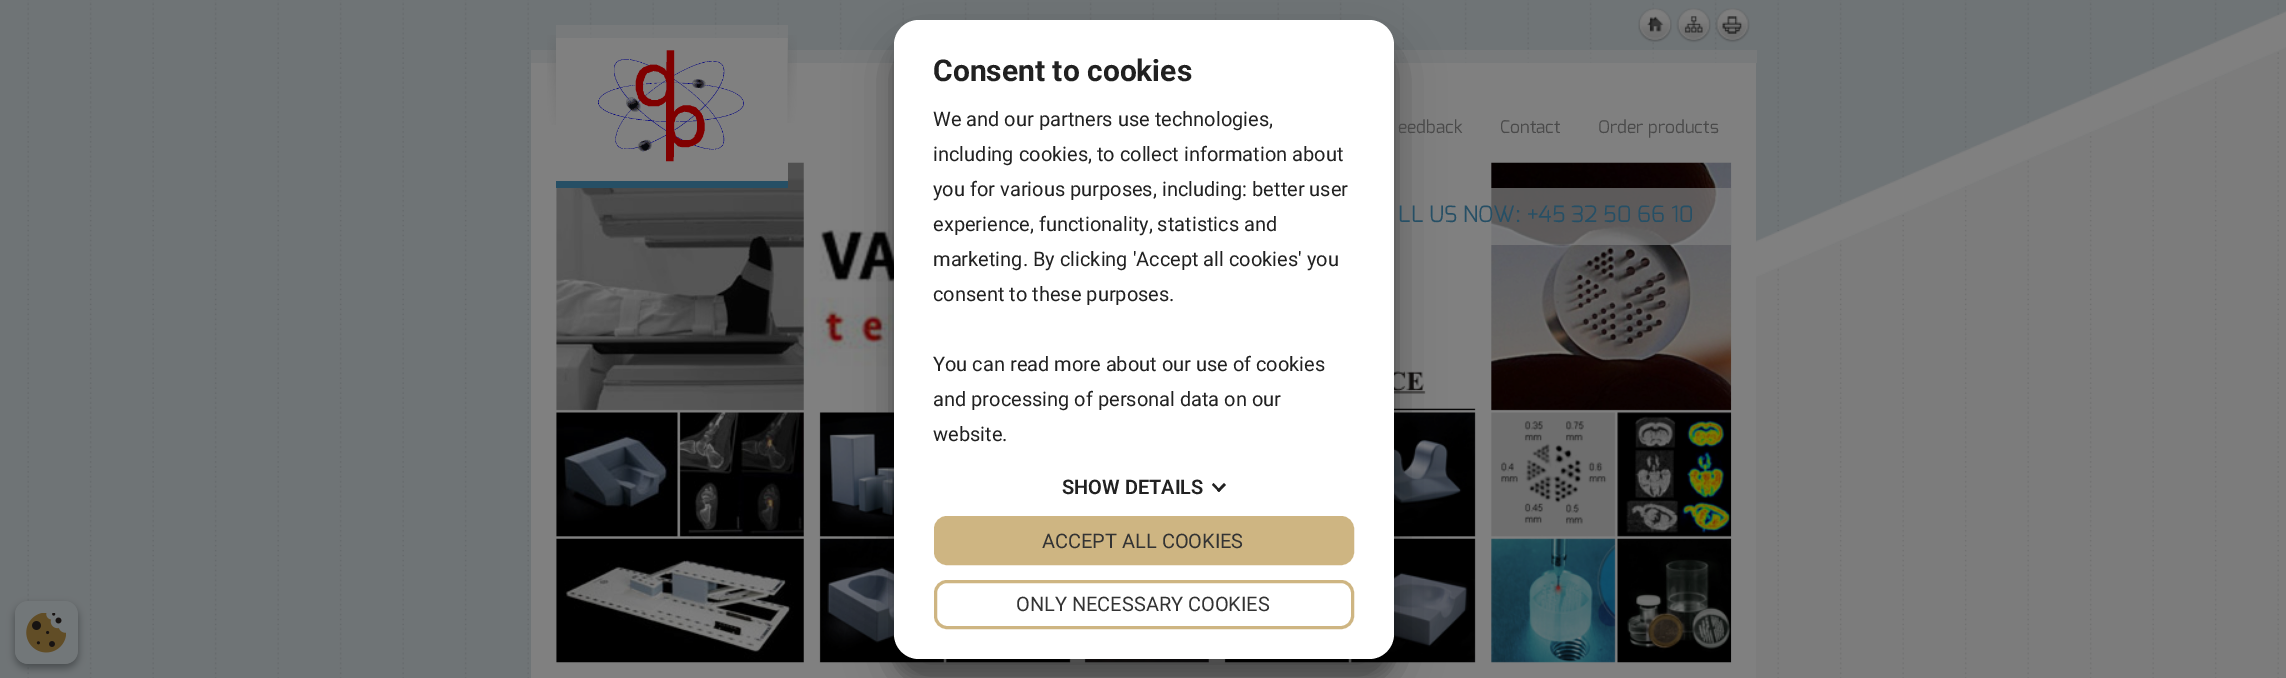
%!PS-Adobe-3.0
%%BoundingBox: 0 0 2286 678
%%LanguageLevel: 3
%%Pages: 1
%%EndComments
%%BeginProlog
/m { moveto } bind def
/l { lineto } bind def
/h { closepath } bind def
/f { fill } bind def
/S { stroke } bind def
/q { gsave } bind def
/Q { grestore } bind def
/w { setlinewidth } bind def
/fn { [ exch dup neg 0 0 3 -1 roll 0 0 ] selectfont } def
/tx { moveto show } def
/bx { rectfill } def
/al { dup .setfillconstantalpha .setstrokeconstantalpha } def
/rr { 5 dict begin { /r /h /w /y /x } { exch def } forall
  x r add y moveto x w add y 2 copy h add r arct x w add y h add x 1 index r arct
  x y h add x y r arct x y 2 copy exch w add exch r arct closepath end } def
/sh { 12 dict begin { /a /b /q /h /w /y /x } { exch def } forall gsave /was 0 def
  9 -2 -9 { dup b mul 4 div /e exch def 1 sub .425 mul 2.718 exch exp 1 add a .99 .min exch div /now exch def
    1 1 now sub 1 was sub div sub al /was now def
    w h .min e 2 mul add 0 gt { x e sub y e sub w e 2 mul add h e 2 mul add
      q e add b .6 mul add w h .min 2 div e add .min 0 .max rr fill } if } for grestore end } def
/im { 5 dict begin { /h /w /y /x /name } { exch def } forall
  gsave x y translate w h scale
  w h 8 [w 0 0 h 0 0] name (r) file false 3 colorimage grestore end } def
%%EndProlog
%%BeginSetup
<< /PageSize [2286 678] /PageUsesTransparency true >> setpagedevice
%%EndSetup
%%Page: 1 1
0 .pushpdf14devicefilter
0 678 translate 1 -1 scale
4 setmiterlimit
1 setgray
0 0 2286 678 bx
(image0.raw) 0 0 2286 678 im
0 setgray
15 605 63 63 13 4 0.23 sh
15 605 63 63 13 4 0.16 sh
0.502 setgray
15 601 63 63 13 rr f
(image9.raw) 26 613 40 40 im
(image1.raw) 0 0 2286 678 im
0.5 al
531 50 1226 13 bx
1 al
531 63 1225 615 bx
(image8.raw) 556 162 1176 501 im
0 setgray
894 39 500 639 25 7.5 0.22 sh
894 44 500 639 25 24 0.3 sh
1 setgray
894 20 500 639 25 rr f
/Roboto-Bold 30 fn
0.129 setgray
(Consent to cookies) 933 81 tx
/Roboto-Regular 20 fn
(We and our partners use technologies,) 933 126 tx
(including cookies, to collect information about) 933 161 tx
(you for various purposes, including: better user) 933 196 tx
(experience, functionality, statistics and) 933 231 tx
(marketing. By clicking 'Accept all cookies' you) 933 266 tx
(consent to these purposes.) 933 301 tx
(You can read more about our use of cookies) 933 371 tx
(and processing of personal data on our) 933 406 tx
(website.) 933 441 tx
/Roboto-SemiBold 20 fn
(SHOW DETAILS) 1062 494 tx
1224 483 m 1226 485 l 1219 492 l 1217 490.5 l h f
1213.5 483 m 1220.5 490.5 l 1219 492 l 1212 485 l h f
0.808 0.71 0.51 setrgbcolor
935.5 517.5 417 46 11.5 rr q f Q
3 w
S
/Roboto-Regular 20 fn
0.2 setgray
(ACCEPT ALL COOKIES) 1042 548 tx
0.808 0.71 0.51 setrgbcolor
935.5 581.5 417 46 11.5 rr S
0.2 setgray
(ONLY NECESSARY COOKIES) 1016 611 tx
(image2.raw) 1638 8 34 34 im
(image3.raw) 1676 8 35 35 im
(image4.raw) 1715 8 35 35 im
(image5.raw) 547 35 9 90 im
0.149 0.31 0.396 setrgbcolor
556 181 232 7 bx
0.5 al
0.502 setgray
556 25 232 13 bx
1 al
556 38 232 143 bx
(image6.raw) 598 50 146 112 im
(image7.raw) 787 35 10 88 im
/Exo-Regular 17.5 fn
0.29 setgray
(eedback) 1398 133 tx
(Contact) 1500 133 tx
(Order products) 1598 133 tx
0.7 al
0.502 setgray
1491 188 240 57 bx
/Exo-Regular 22.5 fn
1 al
0.149 0.31 0.396 setrgbcolor
(LL US NOW: +45 32 50 66 10) 1398 222 tx
.poppdf14devicefilter showpage
%%EOF
